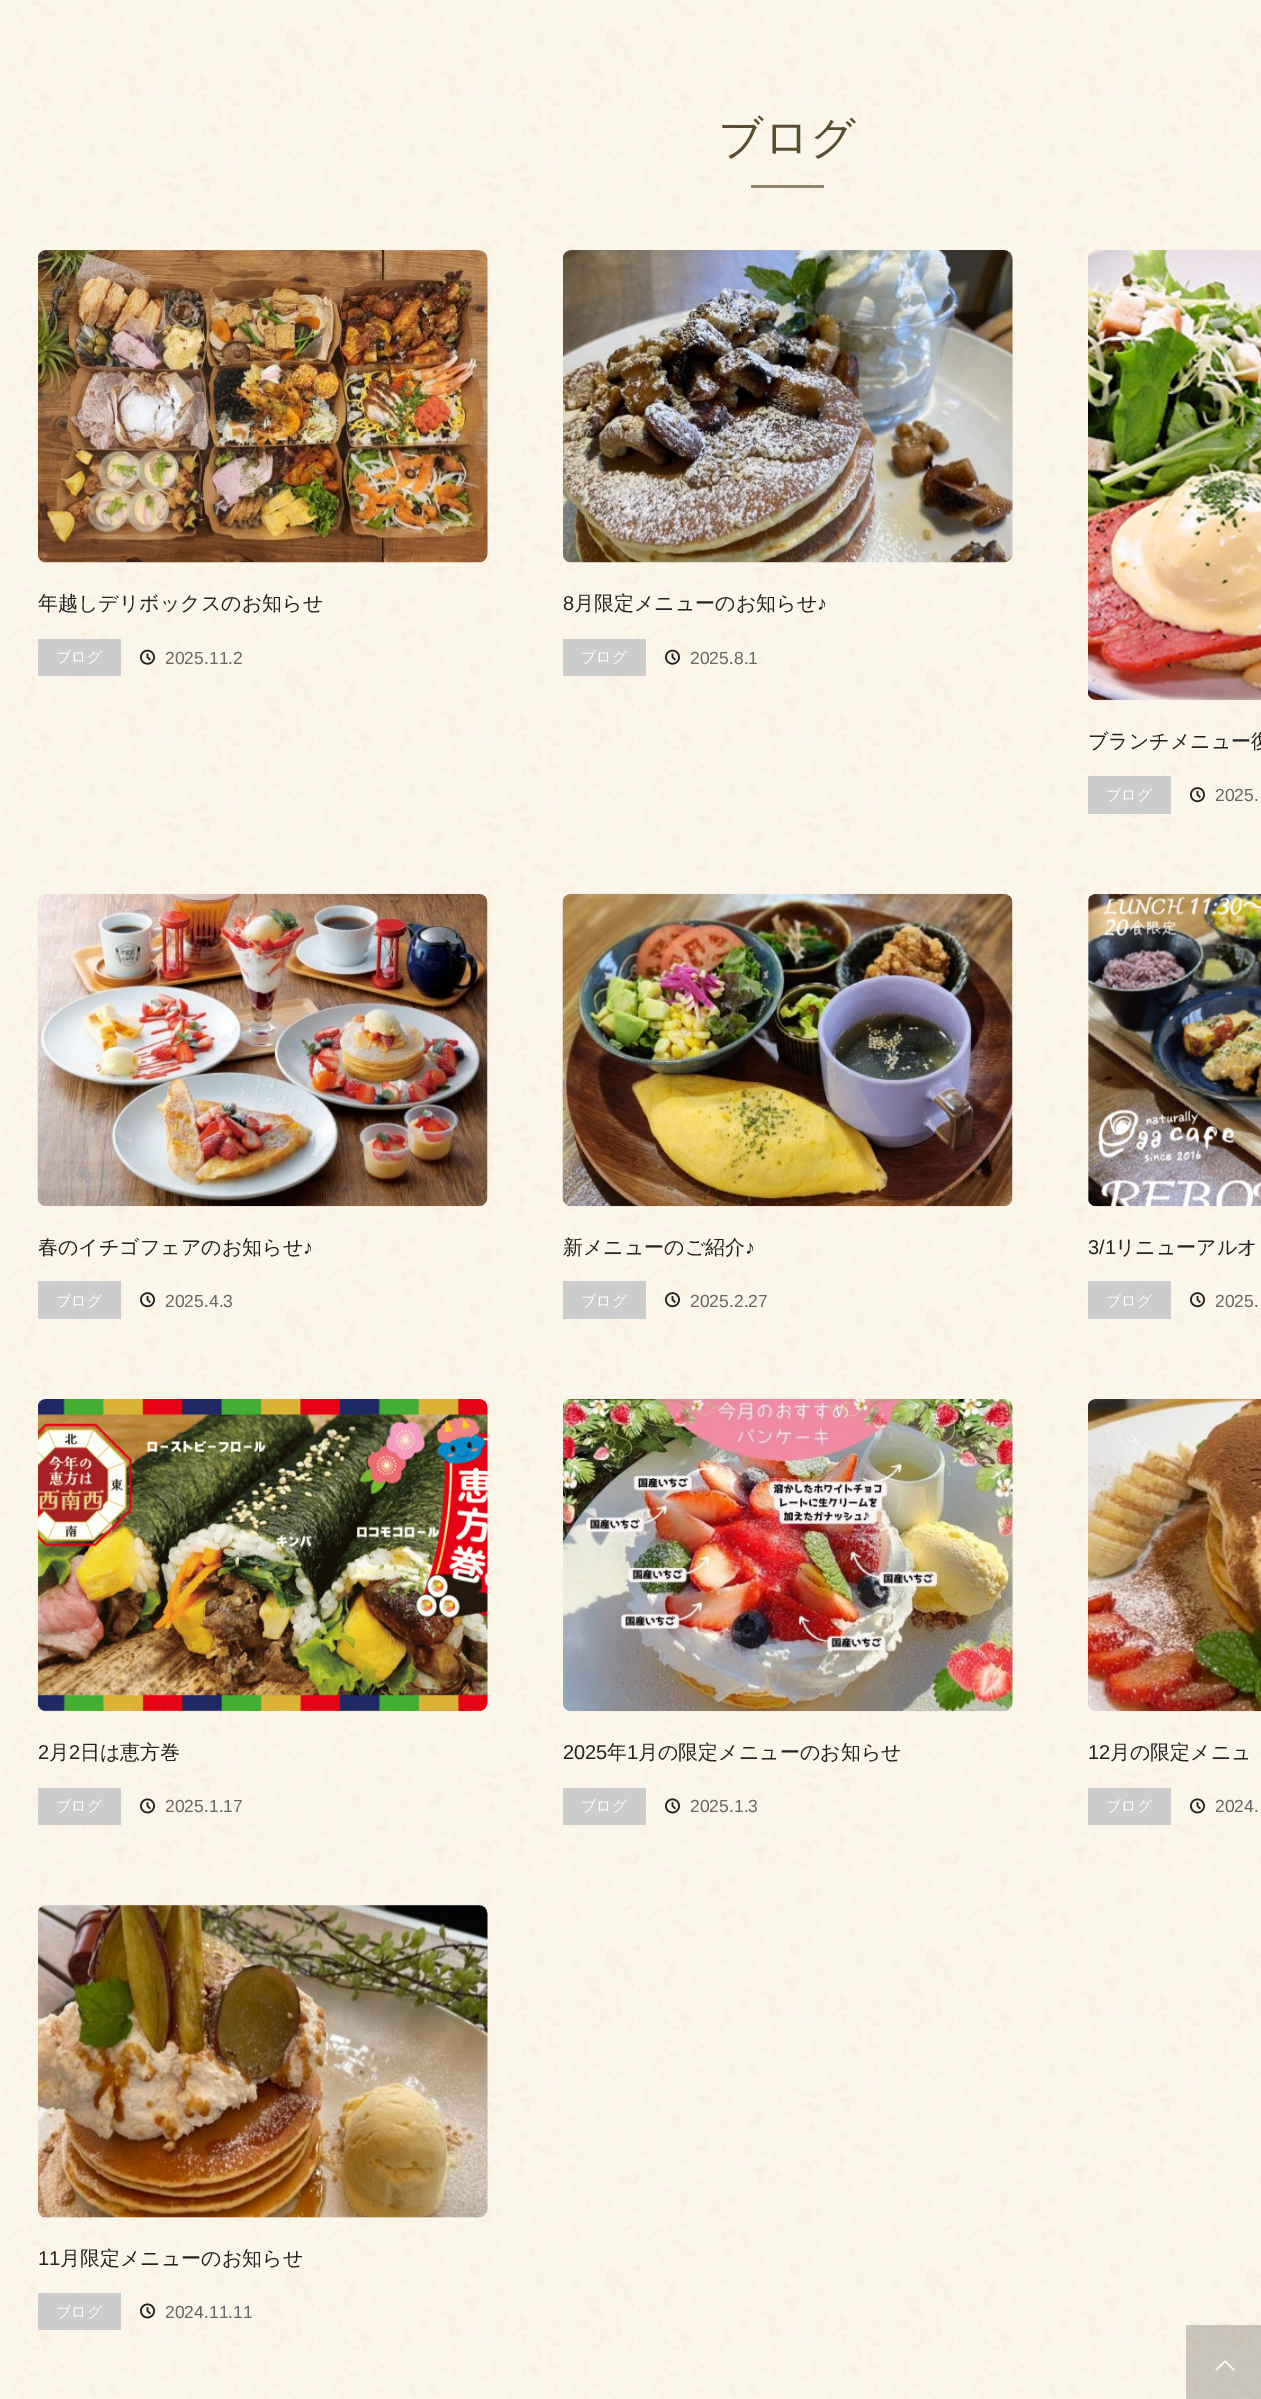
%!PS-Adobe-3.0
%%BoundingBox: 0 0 1261 2399
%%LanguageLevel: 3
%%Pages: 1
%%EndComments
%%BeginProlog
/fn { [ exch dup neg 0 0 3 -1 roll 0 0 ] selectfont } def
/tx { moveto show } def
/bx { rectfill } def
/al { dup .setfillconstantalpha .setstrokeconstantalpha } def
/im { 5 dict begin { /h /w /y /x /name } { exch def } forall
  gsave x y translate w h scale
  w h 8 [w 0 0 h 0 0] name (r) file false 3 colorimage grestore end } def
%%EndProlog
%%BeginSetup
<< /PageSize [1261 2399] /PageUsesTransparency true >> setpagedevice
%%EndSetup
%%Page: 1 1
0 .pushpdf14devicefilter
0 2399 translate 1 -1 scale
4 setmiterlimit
1 setgray
0 0 1261 2399 bx
(image0.raw) 0 0 1261 2399 im
0.569 0.522 0.42 setrgbcolor
751 185 73 3 bx
/WenQuanYiZenHei-Medium 45 fn
0.353 0.302 0.18 setrgbcolor
(ブログ) 718 153 tx
(image1.raw) 38 250 450 313 im
/WenQuanYiZenHei-Medium 20 fn
0.133 setgray
(年越しデリボックスのお知らせ) 38 610 tx
0.8 setgray
38 639 83 37 bx
/WenQuanYiZenHei-Medium 15 fn
1 setgray
(ブログ) 56 662 tx
(image2.raw) 140 649 15 16 im
/LiberationSans-Regular 17.5 fn
0.4 setgray
(2025.11.2) 165 664 tx
(image3.raw) 563 250 450 313 im
/LiberationSans-Regular 20 fn
0.133 setgray
(8) 563 610 tx
/WenQuanYiZenHei-Medium 20 fn
(月限定メニューのお知らせ) 574 610 tx
/LiberationSans-Regular 20 fn
(♪) 817 610 tx
0.8 setgray
563 639 83 37 bx
/WenQuanYiZenHei-Medium 15 fn
1 setgray
(ブログ) 581 662 tx
(image4.raw) 665 649 15 16 im
/LiberationSans-Regular 17.5 fn
0.4 setgray
(2025.8.1) 690 664 tx
(image5.raw) 1088 250 173 450 im
/WenQuanYiZenHei-Medium 20 fn
0.133 setgray
(ブランチメニュー復) 1088 748 tx
0.8 setgray
1088 776 83 38 bx
/WenQuanYiZenHei-Medium 15 fn
1 setgray
(ブログ) 1106 800 tx
(image6.raw) 1190 787 15 16 im
/LiberationSans-Regular 17.5 fn
0.4 setgray
(2025.) 1215 801 tx
(image7.raw) 37 893 451 314 im
/WenQuanYiZenHei-Medium 20 fn
0.133 setgray
(春のイチゴフェアのお知らせ) 38 1254 tx
/LiberationSans-Regular 20 fn
(♪) 303 1254 tx
0.8 setgray
38 1281 83 38 bx
/WenQuanYiZenHei-Medium 15 fn
1 setgray
(ブログ) 56 1306 tx
(image8.raw) 140 1292 15 16 im
/LiberationSans-Regular 17.5 fn
0.4 setgray
(2025.4.3) 165 1307 tx
(image9.raw) 562 893 451 314 im
/WenQuanYiZenHei-Medium 20 fn
0.133 setgray
(新メニューのご紹介) 563 1254 tx
/LiberationSans-Regular 20 fn
(♪) 745 1254 tx
0.8 setgray
563 1281 83 38 bx
/WenQuanYiZenHei-Medium 15 fn
1 setgray
(ブログ) 581 1306 tx
(image10.raw) 665 1292 15 16 im
/LiberationSans-Regular 17.5 fn
0.4 setgray
(2025.2.27) 690 1307 tx
(image11.raw) 1088 894 173 313 im
/LiberationSans-Regular 20 fn
0.133 setgray
(3/1) 1088 1254 tx
/WenQuanYiZenHei-Medium 20 fn
(リニューアルオ) 1115 1254 tx
0.8 setgray
1088 1281 83 38 bx
/WenQuanYiZenHei-Medium 15 fn
1 setgray
(ブログ) 1106 1306 tx
(image12.raw) 1190 1292 15 16 im
/LiberationSans-Regular 17.5 fn
0.4 setgray
(2025.) 1215 1307 tx
(image13.raw) 38 1399 450 313 im
/LiberationSans-Regular 20 fn
0.133 setgray
(2) 38 1759 tx
/WenQuanYiZenHei-Medium 20 fn
(月) 49 1759 tx
/LiberationSans-Regular 20 fn
(2) 69 1759 tx
/WenQuanYiZenHei-Medium 20 fn
(日は恵方巻) 80 1759 tx
0.8 setgray
38 1788 83 37 bx
/WenQuanYiZenHei-Medium 15 fn
1 setgray
(ブログ) 56 1811 tx
(image14.raw) 140 1798 15 16 im
/LiberationSans-Regular 17.5 fn
0.4 setgray
(2025.1.17) 165 1812 tx
(image15.raw) 563 1399 450 313 im
/LiberationSans-Regular 20 fn
0.133 setgray
(2025) 563 1759 tx
/WenQuanYiZenHei-Medium 20 fn
(年) 607 1759 tx
/LiberationSans-Regular 20 fn
(1) 627 1759 tx
/WenQuanYiZenHei-Medium 20 fn
(月の限定メニューのお知らせ) 638 1759 tx
0.8 setgray
563 1788 83 37 bx
/WenQuanYiZenHei-Medium 15 fn
1 setgray
(ブログ) 581 1811 tx
(image16.raw) 665 1798 15 16 im
/LiberationSans-Regular 17.5 fn
0.4 setgray
(2025.1.3) 690 1812 tx
(image17.raw) 1088 1399 173 313 im
/LiberationSans-Regular 20 fn
0.133 setgray
(12) 1088 1759 tx
/WenQuanYiZenHei-Medium 20 fn
(月の限定メニュ) 1110 1759 tx
0.8 setgray
1088 1788 83 37 bx
/WenQuanYiZenHei-Medium 15 fn
1 setgray
(ブログ) 1106 1811 tx
(image18.raw) 1190 1798 15 16 im
/LiberationSans-Regular 17.5 fn
0.4 setgray
(2024.) 1215 1812 tx
(image19.raw) 38 1905 450 313 im
/LiberationSans-Regular 20 fn
0.133 setgray
(11) 38 2265 tx
/WenQuanYiZenHei-Medium 20 fn
(月限定メニューのお知らせ) 60 2265 tx
0.8 setgray
38 2293 83 37 bx
/WenQuanYiZenHei-Medium 15 fn
1 setgray
(ブログ) 56 2317 tx
(image20.raw) 140 2303 15 16 im
/LiberationSans-Regular 17.5 fn
0.4 setgray
(2024.11.11) 165 2318 tx
0.2 al
0 setgray
1186 2325 75 74 bx
1 al
(image21.raw) 1215 2360 20 11 im
.poppdf14devicefilter showpage
%%EOF
